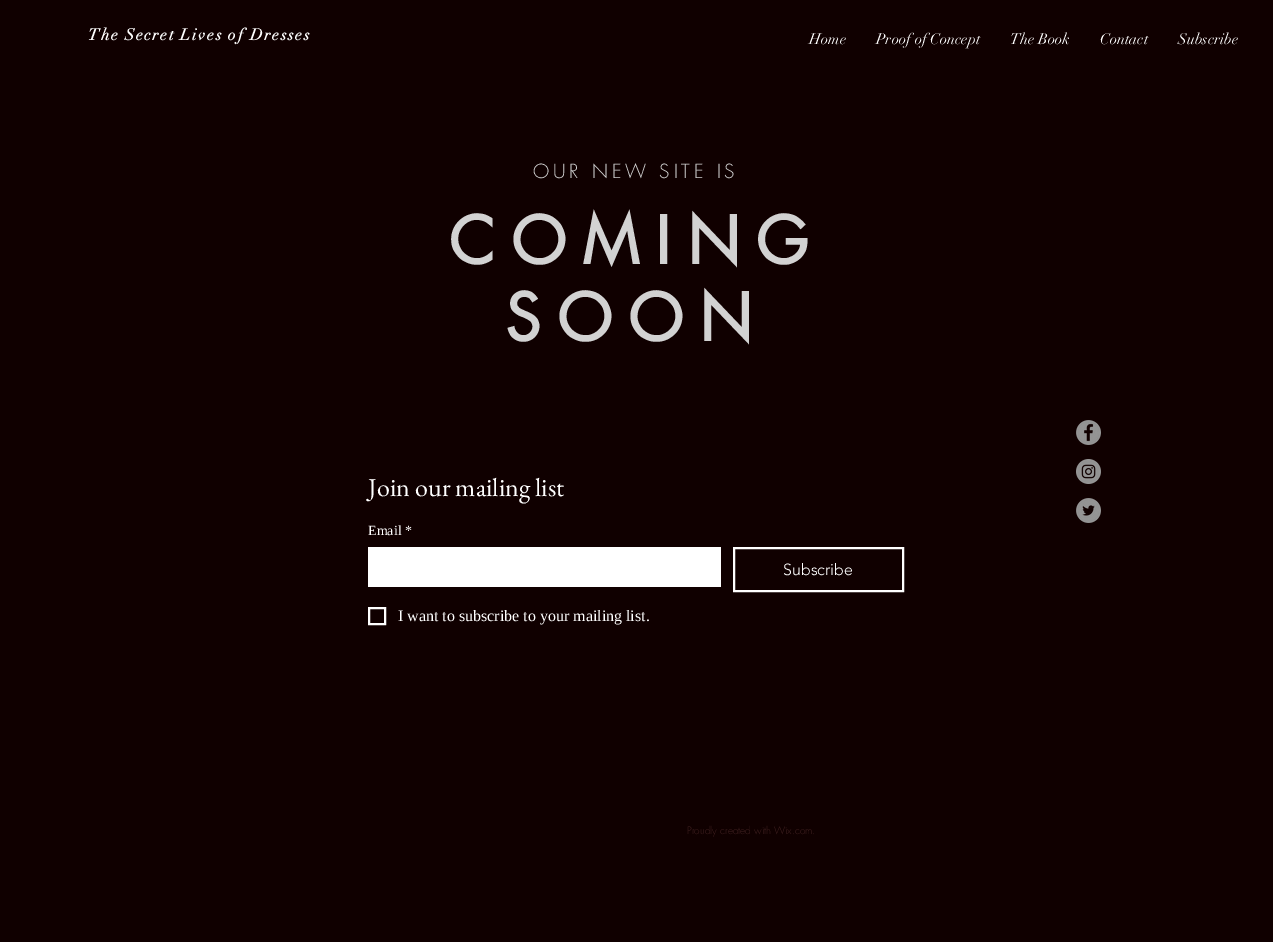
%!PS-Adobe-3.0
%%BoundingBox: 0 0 1273 942
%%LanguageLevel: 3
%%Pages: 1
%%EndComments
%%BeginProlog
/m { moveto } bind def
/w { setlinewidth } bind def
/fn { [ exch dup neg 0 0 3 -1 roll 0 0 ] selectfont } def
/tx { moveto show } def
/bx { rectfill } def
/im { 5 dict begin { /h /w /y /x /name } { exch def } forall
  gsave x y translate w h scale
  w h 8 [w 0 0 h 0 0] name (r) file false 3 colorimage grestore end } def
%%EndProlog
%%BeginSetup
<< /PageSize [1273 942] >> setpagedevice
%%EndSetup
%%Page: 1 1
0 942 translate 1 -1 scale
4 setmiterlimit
0.063 0 0 setrgbcolor
0 0 1273 942 bx
/didot-Bold 16 fn
1 setgray
88 40 m 1.6 0 (The Secret Lives of Dresses) ashow
/didot-Regular 15 fn
(Home) 809 44 tx
(Proof of Concept) 876 44 tx
(The Book) 1010 44 tx
(Contact) 1100 44 tx
(Subscribe) 1178 44 tx
/futura-Light 19 fn
0.824 setgray
533 178 m 3.75 0 (OUR NEW SITE IS) ashow
/futura-Bold 64 fn
449 264 m 16 0 (COMING) ashow
505 341 m 16 0 (SOON) ashow
/EBGaramond-Regular 26 fn
1 setgray
(Join our mailing list) 368 496 tx
/LiberationSerif-Regular 14 fn
(Email) 368 535 tx
(*) 405 535 tx
368 547 353 40 bx
2 w
734 548 169 43 rectstroke
/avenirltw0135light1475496-Light 16 fn
(Subscribe) 783 575 tx
369 608 16 16 rectstroke
/LiberationSerif-Regular 16 fn
(I want to subscribe to your mailing list.) 398 621 tx
(image0.raw) 1076 420 25 25 im
(image1.raw) 1076 459 25 25 im
(image2.raw) 1076 498 25 25 im
/futura-Light 10 fn
0.251 0.125 0.125 setrgbcolor
(Proudly created with Wix.com.) 687 834 tx
showpage
%%EOF
